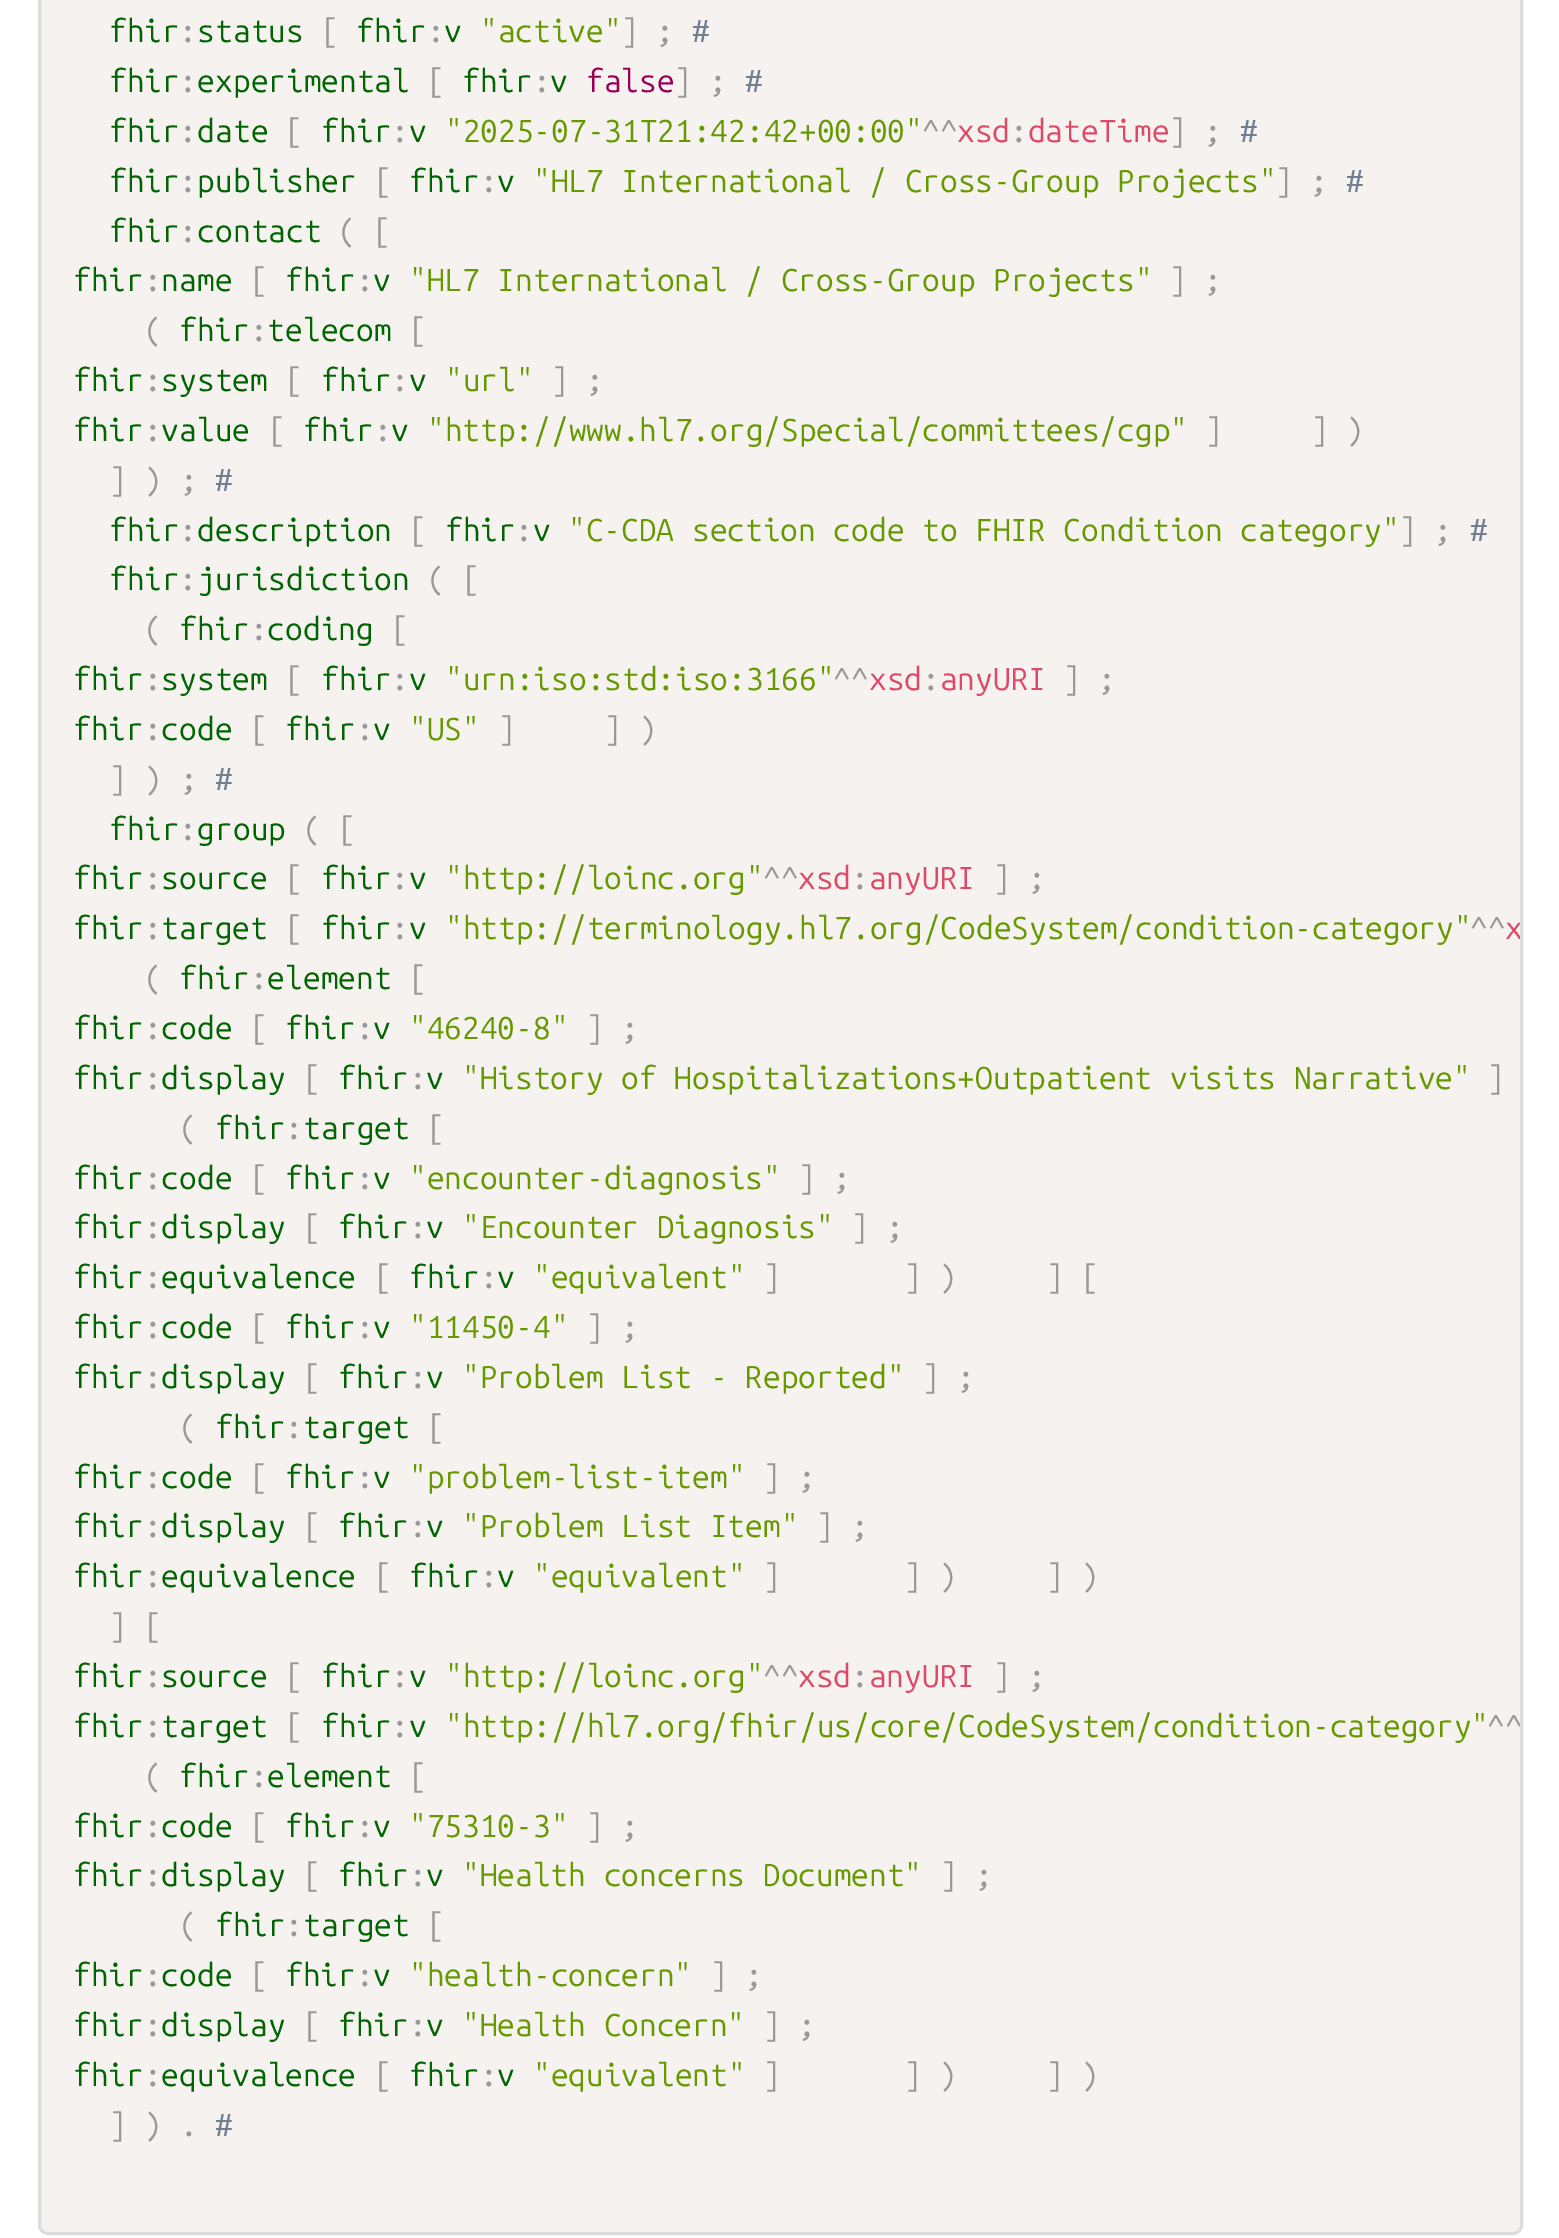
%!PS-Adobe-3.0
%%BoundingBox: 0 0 1559 2238
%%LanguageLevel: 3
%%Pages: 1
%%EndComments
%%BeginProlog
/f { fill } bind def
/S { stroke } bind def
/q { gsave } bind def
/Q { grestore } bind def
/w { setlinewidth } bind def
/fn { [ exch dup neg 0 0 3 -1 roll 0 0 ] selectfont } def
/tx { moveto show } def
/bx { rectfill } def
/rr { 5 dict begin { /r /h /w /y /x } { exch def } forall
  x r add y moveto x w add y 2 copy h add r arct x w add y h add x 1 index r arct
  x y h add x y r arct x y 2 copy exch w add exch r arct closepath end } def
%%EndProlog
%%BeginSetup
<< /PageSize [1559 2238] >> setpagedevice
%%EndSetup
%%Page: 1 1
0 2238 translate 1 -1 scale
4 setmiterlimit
1 setgray
0 0 1559 2238 bx
0.961 0.949 0.941 setrgbcolor
39.5 -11.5 1482 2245 8.5 rr q f Q
0.863 setgray
3 w
S
/UbuntuMono-Regular 31.6 fn
0 0.392 0 setrgbcolor
(fhir status) 109 42 tx
0.6 setgray
([) 321 42 tx
0 0.392 0 setrgbcolor
(fhir v) 356 42 tx
0.4 0.6 0 setrgbcolor
("active") 480 42 tx
0.6 setgray
(] ;) 621 42 tx
0.439 0.502 0.565 setrgbcolor
(#) 692 42 tx
0.6 setgray
(:) 179 42 tx
(:) 427 42 tx
0 0.392 0 setrgbcolor
(fhir experimental) 109 92 tx
0.6 setgray
([) 427 92 tx
0 0.392 0 setrgbcolor
(fhir v) 462 92 tx
0.6 0 0.333 setrgbcolor
(false) 586 92 tx
0.6 setgray
(] ;) 674 92 tx
0.439 0.502 0.565 setrgbcolor
(#) 745 92 tx
0.6 setgray
(:) 179 92 tx
(:) 533 92 tx
0 0.392 0 setrgbcolor
(fhir date) 109 142 tx
0.6 setgray
([) 285 142 tx
0 0.392 0 setrgbcolor
(fhir v) 321 142 tx
0.4 0.6 0 setrgbcolor
("2025-07-31T21:42:42+00:00") 445 142 tx
0.6 setgray
(^^) 922 142 tx
0.867 0.29 0.408 setrgbcolor
(xsd dateTime) 957 142 tx
0.6 setgray
(] ;) 1169 142 tx
0.439 0.502 0.565 setrgbcolor
(#) 1240 142 tx
0.6 setgray
(:) 179 142 tx
(:) 391 142 tx
(:) 1010 142 tx
0 0.392 0 setrgbcolor
(fhir publisher) 109 192 tx
0.6 setgray
([) 374 192 tx
0 0.392 0 setrgbcolor
(fhir v) 409 192 tx
0.4 0.6 0 setrgbcolor
("HL7 International / Cross-Group Projects") 533 192 tx
0.6 setgray
(] ;) 1275 192 tx
0.439 0.502 0.565 setrgbcolor
(#) 1346 192 tx
0.6 setgray
(:) 179 192 tx
(:) 480 192 tx
0 0.392 0 setrgbcolor
(fhir contact) 109 242 tx
0.6 setgray
(\( [) 338 242 tx
(:) 179 242 tx
0 0.392 0 setrgbcolor
(fhir name) 73 291 tx
0.6 setgray
([) 250 291 tx
0 0.392 0 setrgbcolor
(fhir v) 285 291 tx
0.4 0.6 0 setrgbcolor
("HL7 International / Cross-Group Projects") 409 291 tx
0.6 setgray
(] ;) 1169 291 tx
(:) 144 291 tx
(:) 356 291 tx
(\() 144 341 tx
0 0.392 0 setrgbcolor
(fhir telecom) 179 341 tx
0.6 setgray
([) 409 341 tx
(:) 250 341 tx
0 0.392 0 setrgbcolor
(fhir system) 73 391 tx
0.6 setgray
([) 285 391 tx
0 0.392 0 setrgbcolor
(fhir v) 321 391 tx
0.4 0.6 0 setrgbcolor
("url") 445 391 tx
0.6 setgray
(] ;) 551 391 tx
(:) 144 391 tx
(:) 391 391 tx
0 0.392 0 setrgbcolor
(fhir value) 73 441 tx
0.6 setgray
([) 268 441 tx
0 0.392 0 setrgbcolor
(fhir v) 303 441 tx
0.4 0.6 0 setrgbcolor
("http://www.hl7.org/Special/committees/cgp") 427 441 tx
0.6 setgray
(]) 1205 441 tx
(] \)) 1311 441 tx
(:) 144 441 tx
(:) 374 441 tx
(] \) ;) 109 491 tx
0.439 0.502 0.565 setrgbcolor
(#) 215 491 tx
0 0.392 0 setrgbcolor
(fhir description) 109 541 tx
0.6 setgray
([) 409 541 tx
0 0.392 0 setrgbcolor
(fhir v) 445 541 tx
0.4 0.6 0 setrgbcolor
("C-CDA section code to FHIR Condition category") 568 541 tx
0.6 setgray
(] ;) 1399 541 tx
0.439 0.502 0.565 setrgbcolor
(#) 1470 541 tx
0.6 setgray
(:) 179 541 tx
(:) 515 541 tx
0 0.392 0 setrgbcolor
(fhir jurisdiction) 109 590 tx
0.6 setgray
(\( [) 427 590 tx
(:) 179 590 tx
(\() 144 640 tx
0 0.392 0 setrgbcolor
(fhir coding) 179 640 tx
0.6 setgray
([) 391 640 tx
(:) 250 640 tx
0 0.392 0 setrgbcolor
(fhir system) 73 690 tx
0.6 setgray
([) 285 690 tx
0 0.392 0 setrgbcolor
(fhir v) 321 690 tx
0.4 0.6 0 setrgbcolor
("urn:iso:std:iso:3166") 445 690 tx
0.6 setgray
(^^) 833 690 tx
0.867 0.29 0.408 setrgbcolor
(xsd anyURI) 869 690 tx
0.6 setgray
(] ;) 1063 690 tx
(:) 144 690 tx
(:) 391 690 tx
(:) 922 690 tx
0 0.392 0 setrgbcolor
(fhir code) 73 740 tx
0.6 setgray
([) 250 740 tx
0 0.392 0 setrgbcolor
(fhir v) 285 740 tx
0.4 0.6 0 setrgbcolor
("US") 409 740 tx
0.6 setgray
(]) 498 740 tx
(] \)) 604 740 tx
(:) 144 740 tx
(:) 356 740 tx
(] \) ;) 109 790 tx
0.439 0.502 0.565 setrgbcolor
(#) 215 790 tx
0 0.392 0 setrgbcolor
(fhir group) 109 840 tx
0.6 setgray
(\( [) 303 840 tx
(:) 179 840 tx
0 0.392 0 setrgbcolor
(fhir source) 73 889 tx
0.6 setgray
([) 285 889 tx
0 0.392 0 setrgbcolor
(fhir v) 321 889 tx
0.4 0.6 0 setrgbcolor
("http://loinc.org") 445 889 tx
0.6 setgray
(^^) 763 889 tx
0.867 0.29 0.408 setrgbcolor
(xsd anyURI) 798 889 tx
0.6 setgray
(] ;) 993 889 tx
(:) 144 889 tx
(:) 391 889 tx
(:) 851 889 tx
0 0.392 0 setrgbcolor
(fhir target) 73 939 tx
0.6 setgray
([) 285 939 tx
0 0.392 0 setrgbcolor
(fhir v) 321 939 tx
0.4 0.6 0 setrgbcolor
("http://terminology.hl7.org/CodeSystem/condition-category") 445 939 tx
0.6 setgray
(^^) 1470 939 tx
(:) 144 939 tx
(:) 391 939 tx
q
40 -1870 1480 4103 8 rr clip newpath
0.867 0.29 0.408 setrgbcolor
(x) 1505 939 tx
Q
(\() 144 989 tx
0 0.392 0 setrgbcolor
(fhir element) 179 989 tx
0.6 setgray
([) 409 989 tx
(:) 250 989 tx
0 0.392 0 setrgbcolor
(fhir code) 73 1039 tx
0.6 setgray
([) 250 1039 tx
0 0.392 0 setrgbcolor
(fhir v) 285 1039 tx
0.4 0.6 0 setrgbcolor
("46240-8") 409 1039 tx
0.6 setgray
(] ;) 586 1039 tx
(:) 144 1039 tx
(:) 356 1039 tx
0 0.392 0 setrgbcolor
(fhir display) 73 1089 tx
0.6 setgray
([) 303 1089 tx
0 0.392 0 setrgbcolor
(fhir v) 338 1089 tx
0.4 0.6 0 setrgbcolor
("History of Hospitalizations+Outpatient visits Narrative") 462 1089 tx
0.6 setgray
(]) 1487 1089 tx
(:) 144 1089 tx
(:) 409 1089 tx
(\() 179 1139 tx
0 0.392 0 setrgbcolor
(fhir target) 215 1139 tx
0.6 setgray
([) 427 1139 tx
(:) 285 1139 tx
0 0.392 0 setrgbcolor
(fhir code) 73 1189 tx
0.6 setgray
([) 250 1189 tx
0 0.392 0 setrgbcolor
(fhir v) 285 1189 tx
0.4 0.6 0 setrgbcolor
("encounter-diagnosis") 409 1189 tx
0.6 setgray
(] ;) 798 1189 tx
(:) 144 1189 tx
(:) 356 1189 tx
0 0.392 0 setrgbcolor
(fhir display) 73 1238 tx
0.6 setgray
([) 303 1238 tx
0 0.392 0 setrgbcolor
(fhir v) 338 1238 tx
0.4 0.6 0 setrgbcolor
("Encounter Diagnosis") 462 1238 tx
0.6 setgray
(] ;) 851 1238 tx
(:) 144 1238 tx
(:) 409 1238 tx
0 0.392 0 setrgbcolor
(fhir equivalence) 73 1288 tx
0.6 setgray
([) 374 1288 tx
0 0.392 0 setrgbcolor
(fhir v) 409 1288 tx
0.4 0.6 0 setrgbcolor
("equivalent") 533 1288 tx
0.6 setgray
(]) 763 1288 tx
(] \)) 904 1288 tx
(] [) 1046 1288 tx
(:) 144 1288 tx
(:) 480 1288 tx
0 0.392 0 setrgbcolor
(fhir code) 73 1338 tx
0.6 setgray
([) 250 1338 tx
0 0.392 0 setrgbcolor
(fhir v) 285 1338 tx
0.4 0.6 0 setrgbcolor
("11450-4") 409 1338 tx
0.6 setgray
(] ;) 586 1338 tx
(:) 144 1338 tx
(:) 356 1338 tx
0 0.392 0 setrgbcolor
(fhir display) 73 1388 tx
0.6 setgray
([) 303 1388 tx
0 0.392 0 setrgbcolor
(fhir v) 338 1388 tx
0.4 0.6 0 setrgbcolor
("Problem List - Reported") 462 1388 tx
0.6 setgray
(] ;) 922 1388 tx
(:) 144 1388 tx
(:) 409 1388 tx
(\() 179 1438 tx
0 0.392 0 setrgbcolor
(fhir target) 215 1438 tx
0.6 setgray
([) 427 1438 tx
(:) 285 1438 tx
0 0.392 0 setrgbcolor
(fhir code) 73 1488 tx
0.6 setgray
([) 250 1488 tx
0 0.392 0 setrgbcolor
(fhir v) 285 1488 tx
0.4 0.6 0 setrgbcolor
("problem-list-item") 409 1488 tx
0.6 setgray
(] ;) 763 1488 tx
(:) 144 1488 tx
(:) 356 1488 tx
0 0.392 0 setrgbcolor
(fhir display) 73 1537 tx
0.6 setgray
([) 303 1537 tx
0 0.392 0 setrgbcolor
(fhir v) 338 1537 tx
0.4 0.6 0 setrgbcolor
("Problem List Item") 462 1537 tx
0.6 setgray
(] ;) 816 1537 tx
(:) 144 1537 tx
(:) 409 1537 tx
0 0.392 0 setrgbcolor
(fhir equivalence) 73 1587 tx
0.6 setgray
([) 374 1587 tx
0 0.392 0 setrgbcolor
(fhir v) 409 1587 tx
0.4 0.6 0 setrgbcolor
("equivalent") 533 1587 tx
0.6 setgray
(]) 763 1587 tx
(] \)) 904 1587 tx
(] \)) 1046 1587 tx
(:) 144 1587 tx
(:) 480 1587 tx
(] [) 109 1637 tx
0 0.392 0 setrgbcolor
(fhir source) 73 1687 tx
0.6 setgray
([) 285 1687 tx
0 0.392 0 setrgbcolor
(fhir v) 321 1687 tx
0.4 0.6 0 setrgbcolor
("http://loinc.org") 445 1687 tx
0.6 setgray
(^^) 763 1687 tx
0.867 0.29 0.408 setrgbcolor
(xsd anyURI) 798 1687 tx
0.6 setgray
(] ;) 993 1687 tx
(:) 144 1687 tx
(:) 391 1687 tx
(:) 851 1687 tx
0 0.392 0 setrgbcolor
(fhir target) 73 1737 tx
0.6 setgray
([) 285 1737 tx
0 0.392 0 setrgbcolor
(fhir v) 321 1737 tx
0.4 0.6 0 setrgbcolor
("http://hl7.org/fhir/us/core/CodeSystem/condition-category") 445 1737 tx
q
40 -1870 1480 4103 8 rr clip newpath
0.6 setgray
(^^) 1487 1737 tx
Q
0.6 setgray
(:) 144 1737 tx
(:) 391 1737 tx
(\() 144 1787 tx
0 0.392 0 setrgbcolor
(fhir element) 179 1787 tx
0.6 setgray
([) 409 1787 tx
(:) 250 1787 tx
0 0.392 0 setrgbcolor
(fhir code) 73 1837 tx
0.6 setgray
([) 250 1837 tx
0 0.392 0 setrgbcolor
(fhir v) 285 1837 tx
0.4 0.6 0 setrgbcolor
("75310-3") 409 1837 tx
0.6 setgray
(] ;) 586 1837 tx
(:) 144 1837 tx
(:) 356 1837 tx
0 0.392 0 setrgbcolor
(fhir display) 73 1886 tx
0.6 setgray
([) 303 1886 tx
0 0.392 0 setrgbcolor
(fhir v) 338 1886 tx
0.4 0.6 0 setrgbcolor
("Health concerns Document") 462 1886 tx
0.6 setgray
(] ;) 940 1886 tx
(:) 144 1886 tx
(:) 409 1886 tx
(\() 179 1936 tx
0 0.392 0 setrgbcolor
(fhir target) 215 1936 tx
0.6 setgray
([) 427 1936 tx
(:) 285 1936 tx
0 0.392 0 setrgbcolor
(fhir code) 73 1986 tx
0.6 setgray
([) 250 1986 tx
0 0.392 0 setrgbcolor
(fhir v) 285 1986 tx
0.4 0.6 0 setrgbcolor
("health-concern") 409 1986 tx
0.6 setgray
(] ;) 710 1986 tx
(:) 144 1986 tx
(:) 356 1986 tx
0 0.392 0 setrgbcolor
(fhir display) 73 2036 tx
0.6 setgray
([) 303 2036 tx
0 0.392 0 setrgbcolor
(fhir v) 338 2036 tx
0.4 0.6 0 setrgbcolor
("Health Concern") 462 2036 tx
0.6 setgray
(] ;) 763 2036 tx
(:) 144 2036 tx
(:) 409 2036 tx
0 0.392 0 setrgbcolor
(fhir equivalence) 73 2086 tx
0.6 setgray
([) 374 2086 tx
0 0.392 0 setrgbcolor
(fhir v) 409 2086 tx
0.4 0.6 0 setrgbcolor
("equivalent") 533 2086 tx
0.6 setgray
(]) 763 2086 tx
(] \)) 904 2086 tx
(] \)) 1046 2086 tx
(:) 144 2086 tx
(:) 480 2086 tx
(] \) .) 109 2136 tx
0.439 0.502 0.565 setrgbcolor
(#) 215 2136 tx
showpage
%%EOF
